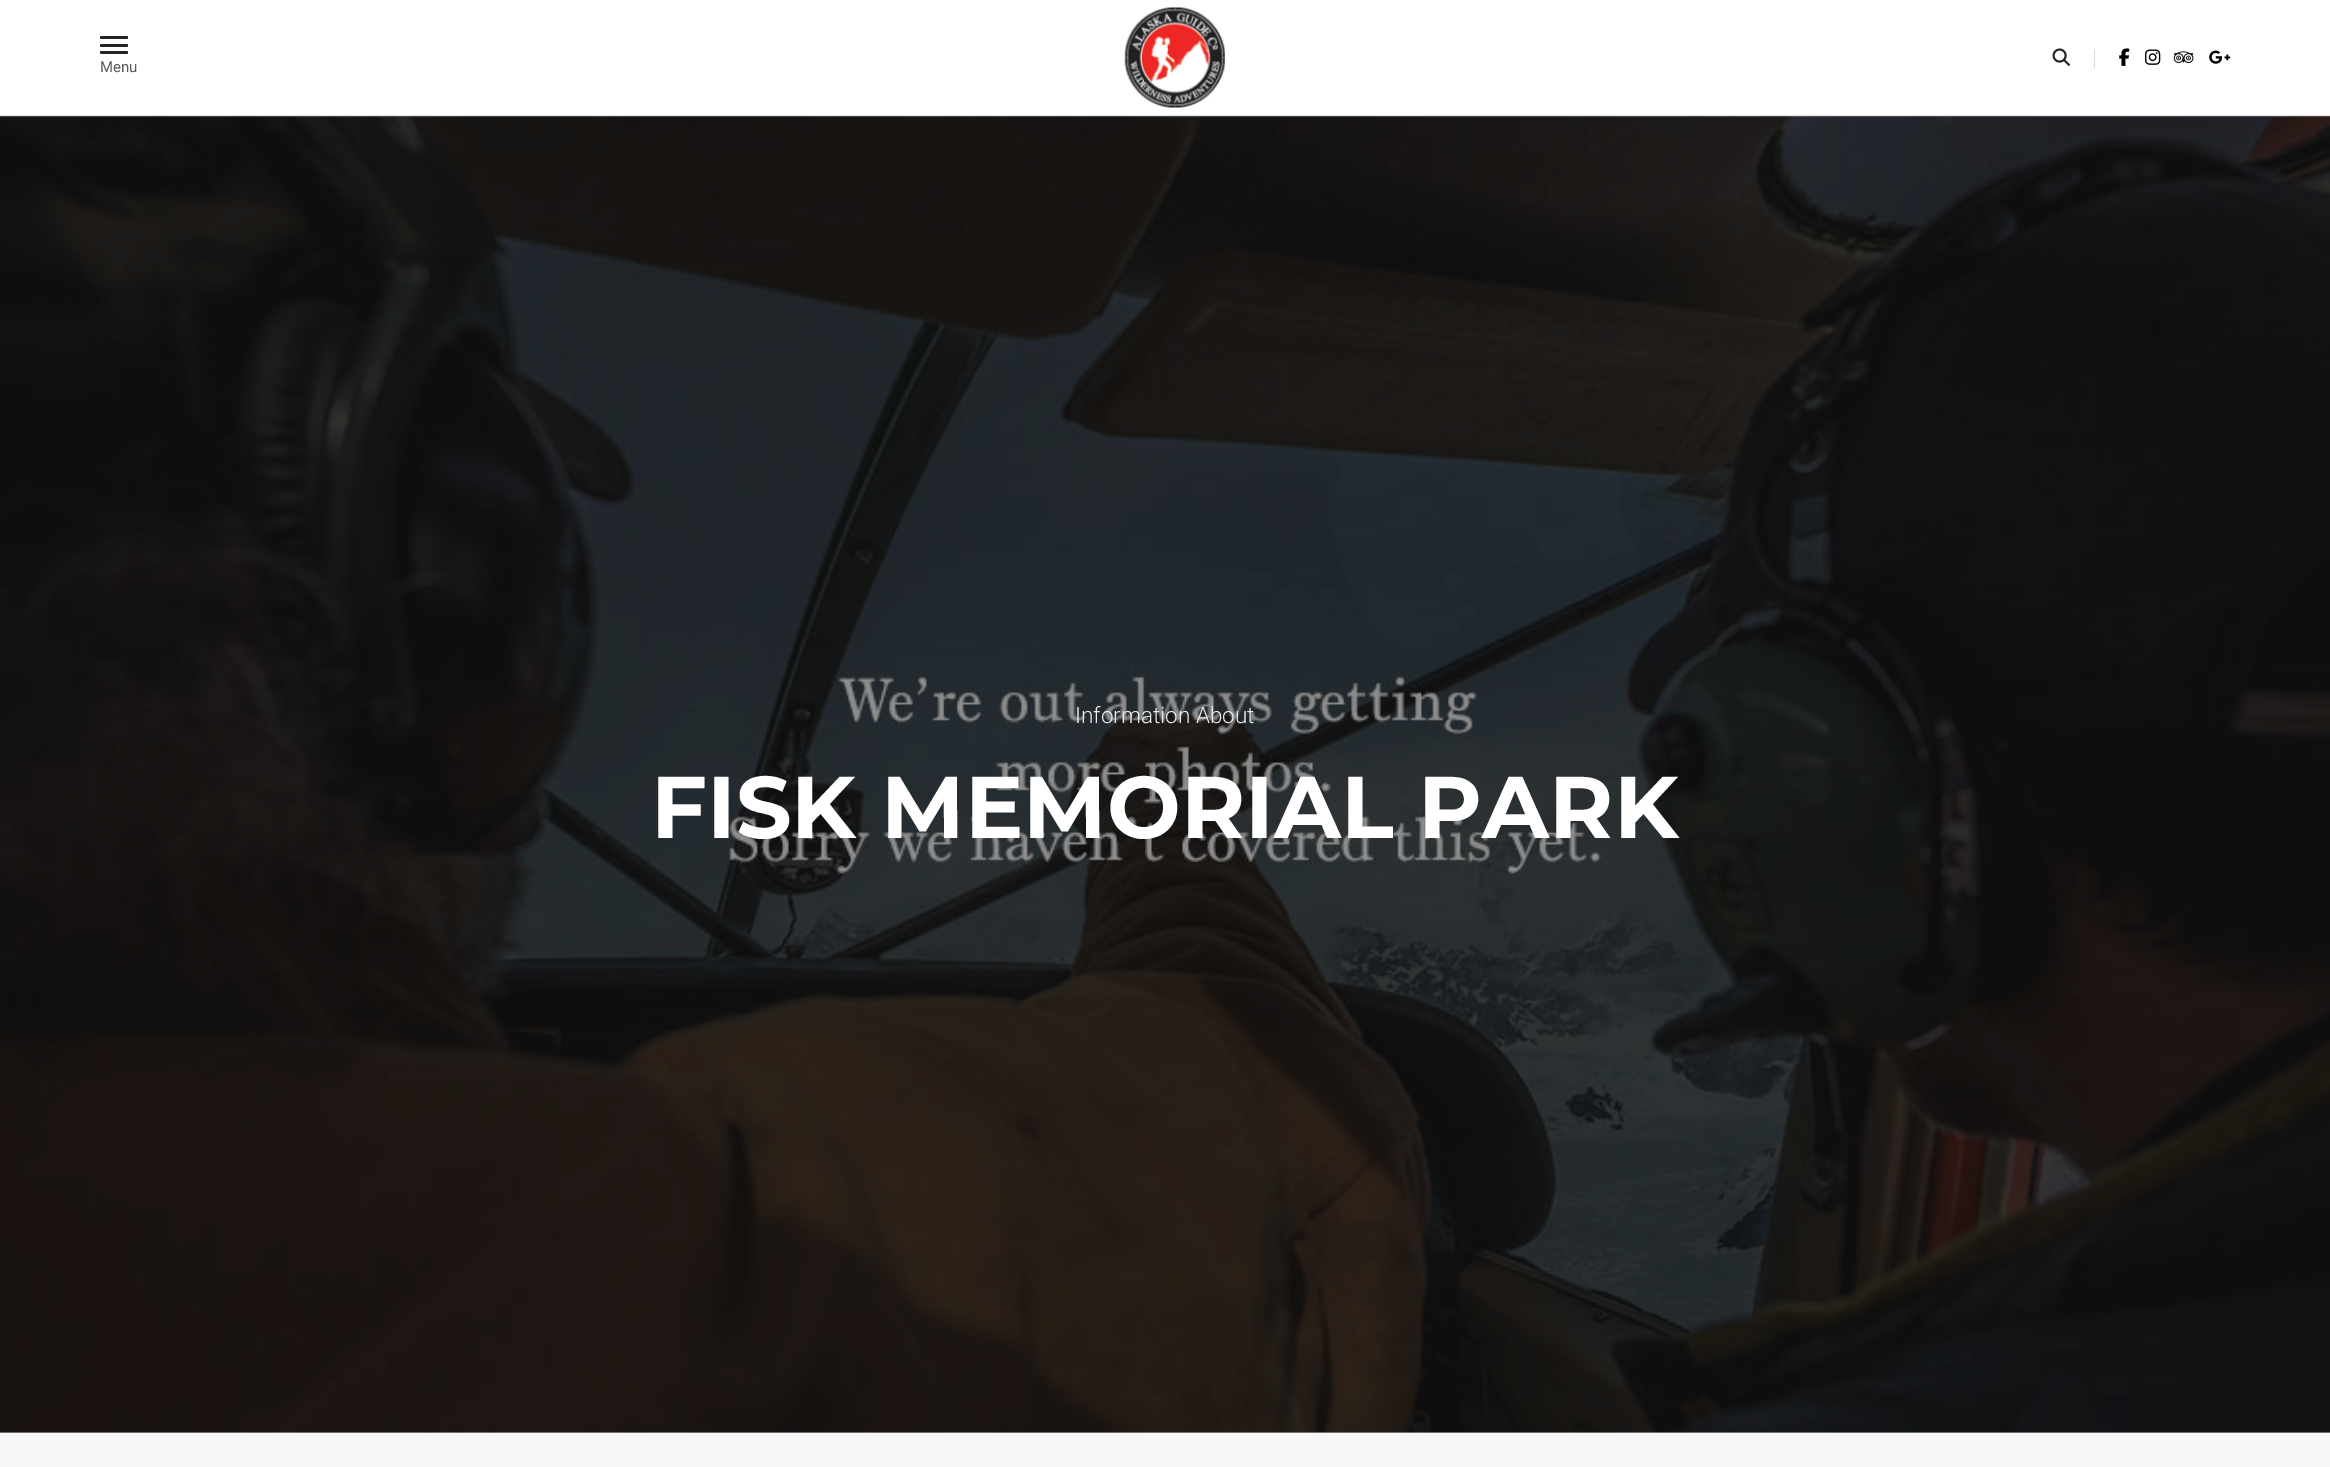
%!PS-Adobe-3.0
%%BoundingBox: 0 0 2330 1467
%%LanguageLevel: 3
%%Pages: 1
%%EndComments
%%BeginProlog
/f { fill } bind def
/fn { [ exch dup neg 0 0 3 -1 roll 0 0 ] selectfont } def
/tx { moveto show } def
/bx { rectfill } def
/rr { 5 dict begin { /r /h /w /y /x } { exch def } forall
  x r add y moveto x w add y 2 copy h add r arct x w add y h add x 1 index r arct
  x y h add x y r arct x y 2 copy exch w add exch r arct closepath end } def
/im { 5 dict begin { /h /w /y /x /name } { exch def } forall
  gsave x y translate w h scale
  w h 8 [w 0 0 h 0 0] name (r) file false 3 colorimage grestore end } def
%%EndProlog
%%BeginSetup
<< /PageSize [2330 1467] >> setpagedevice
%%EndSetup
%%Page: 1 1
0 1467 translate 1 -1 scale
4 setmiterlimit
1 setgray
0 0 2330 1467 bx
0.557 setgray
0 116 2330 1317 bx
0.878 setgray
0 115 2330 1 bx
0.137 setgray
100 36 28 3 1.5 rr f
100 44 28 3 1.5 rr f
100 51 28 3 1.5 rr f
/Roboto-Regular 15 fn
0.349 setgray
(Menu) 100 72 tx
(image0.raw) 1124 7 101 101 im
(image1.raw) 2052 48 18 18 im
0.851 setgray
2094 49 1 19 bx
(image2.raw) 2119 48 11 18 im
(image3.raw) 2145 49 16 16 im
(image4.raw) 2173 51 21 12 im
(image5.raw) 2209 50 22 14 im
(image6.raw) 0 116 2330 1317 im
/Roboto-Light 22.5 fn
0.929 setgray
(Information About) 1075 723 tx
/Montserrat-Bold 87.5 fn
1 setgray
(FISK MEMORIAL PARK) 651 838 tx
0.969 setgray
0 1433 2330 34 bx
showpage
%%EOF
